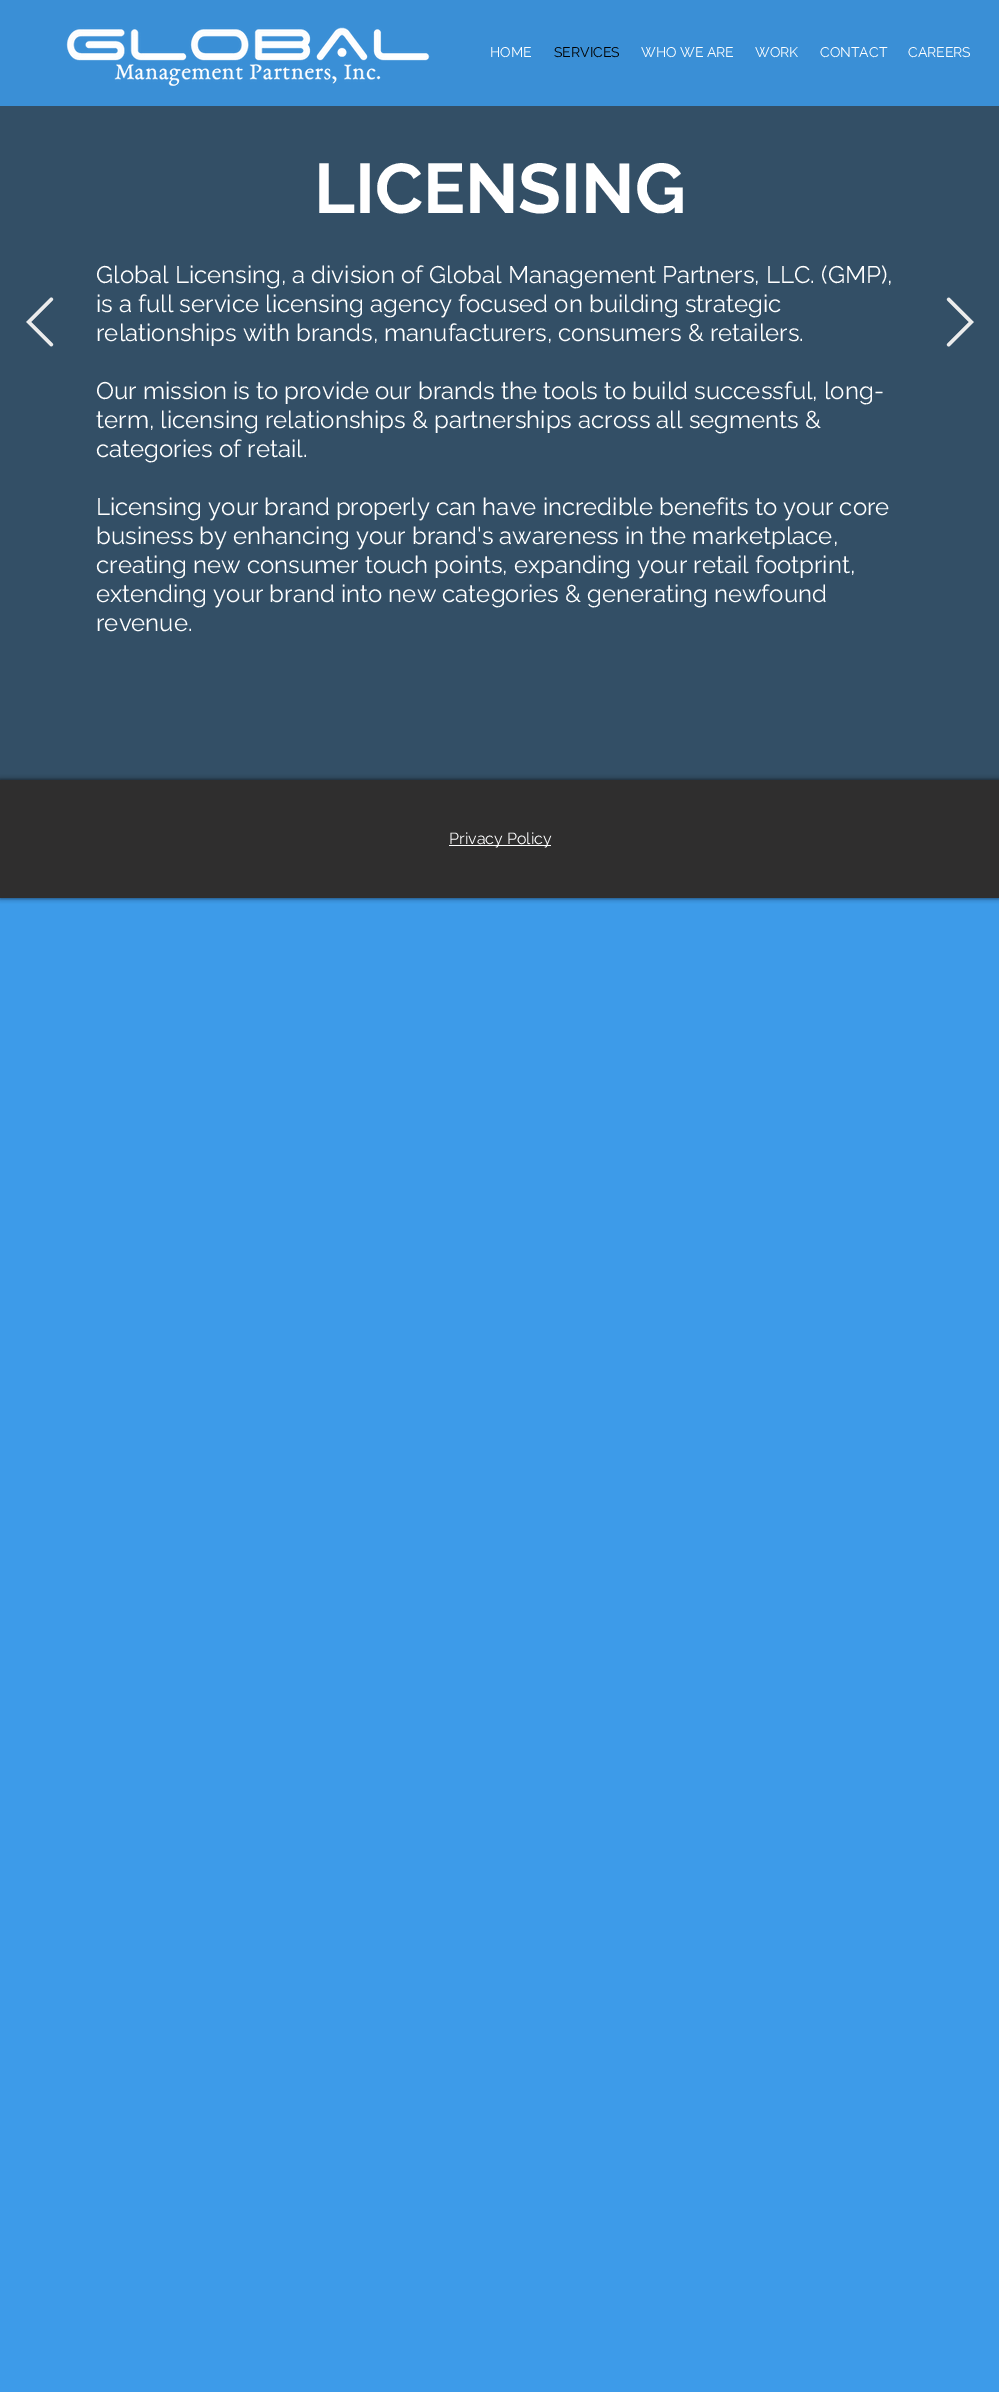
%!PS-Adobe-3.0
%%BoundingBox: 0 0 999 2392
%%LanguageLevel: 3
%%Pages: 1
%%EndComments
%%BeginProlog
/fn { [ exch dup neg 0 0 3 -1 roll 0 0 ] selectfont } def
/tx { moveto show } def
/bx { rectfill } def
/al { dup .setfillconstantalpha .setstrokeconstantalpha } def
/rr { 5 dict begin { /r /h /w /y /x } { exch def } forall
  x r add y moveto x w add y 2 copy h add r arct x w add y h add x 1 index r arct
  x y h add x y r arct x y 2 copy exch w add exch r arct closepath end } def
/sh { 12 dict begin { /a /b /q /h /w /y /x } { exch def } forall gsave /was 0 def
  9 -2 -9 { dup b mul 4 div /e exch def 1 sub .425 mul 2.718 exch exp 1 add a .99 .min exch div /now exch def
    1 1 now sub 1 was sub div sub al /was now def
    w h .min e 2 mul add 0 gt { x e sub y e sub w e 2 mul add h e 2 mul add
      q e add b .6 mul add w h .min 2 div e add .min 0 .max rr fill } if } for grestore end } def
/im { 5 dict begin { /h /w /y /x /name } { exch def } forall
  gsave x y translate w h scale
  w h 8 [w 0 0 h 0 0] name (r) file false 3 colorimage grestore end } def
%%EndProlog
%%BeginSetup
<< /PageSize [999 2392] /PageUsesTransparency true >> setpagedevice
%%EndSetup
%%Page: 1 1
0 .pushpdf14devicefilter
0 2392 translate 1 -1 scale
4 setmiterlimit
0.239 0.608 0.914 setrgbcolor
0 0 999 2392 bx
0.227 0.561 0.839 setrgbcolor
0 0 999 106 bx
(image0.raw) 66 27 364 59 im
/Raleway-Regular 14 fn
1 setgray
(HOME) 490 57 tx
0 setgray
(SERVICES) 554 57 tx
1 setgray
(WHO WE ARE) 641 57 tx
(WORK) 755 57 tx
(CONTACT) 820 57 tx
(CAREERS) 908 57 tx
0.2 0.31 0.4 setrgbcolor
0 106 999 674 bx
(image1.raw) 26 297 28 50 im
/Raleway-Bold 70 fn
1 setgray
(LICENSING) 314 213 tx
/Raleway-Regular 24 fn
(Global Licensing, a division of Global Management Partners, LLC. \(GMP\),) 96 283 tx
(is a full service licensing agency focused on building strategic) 96 312 tx
(relationships with brands, manufacturers, consumers & retailers.) 96 341 tx
(Our mission is to provide our brands the tools to build successful, long-) 96 399 tx
(term, licensing relationships & partnerships across all segments &) 96 428 tx
(categories of retail.) 96 457 tx
(Licensing your brand properly can have incredible benefits to your core) 96 515 tx
(business by enhancing your brand's awareness in the marketplace,) 96 544 tx
(creating new consumer touch points, expanding your retail footprint,) 96 573 tx
(extending your brand into new categories & generating newfound) 96 602 tx
(revenue.) 96 631 tx
(image2.raw) 946 297 28 50 im
0 setgray
0 780 999 118 0 2.5 0.7 sh
0.184 0.18 0.18 setrgbcolor
0 780 999 118 bx
1 setgray
449 845 102 1 bx
/Raleway-Regular 16 fn
(Privacy Policy) 449 844 tx
.poppdf14devicefilter showpage
%%EOF
